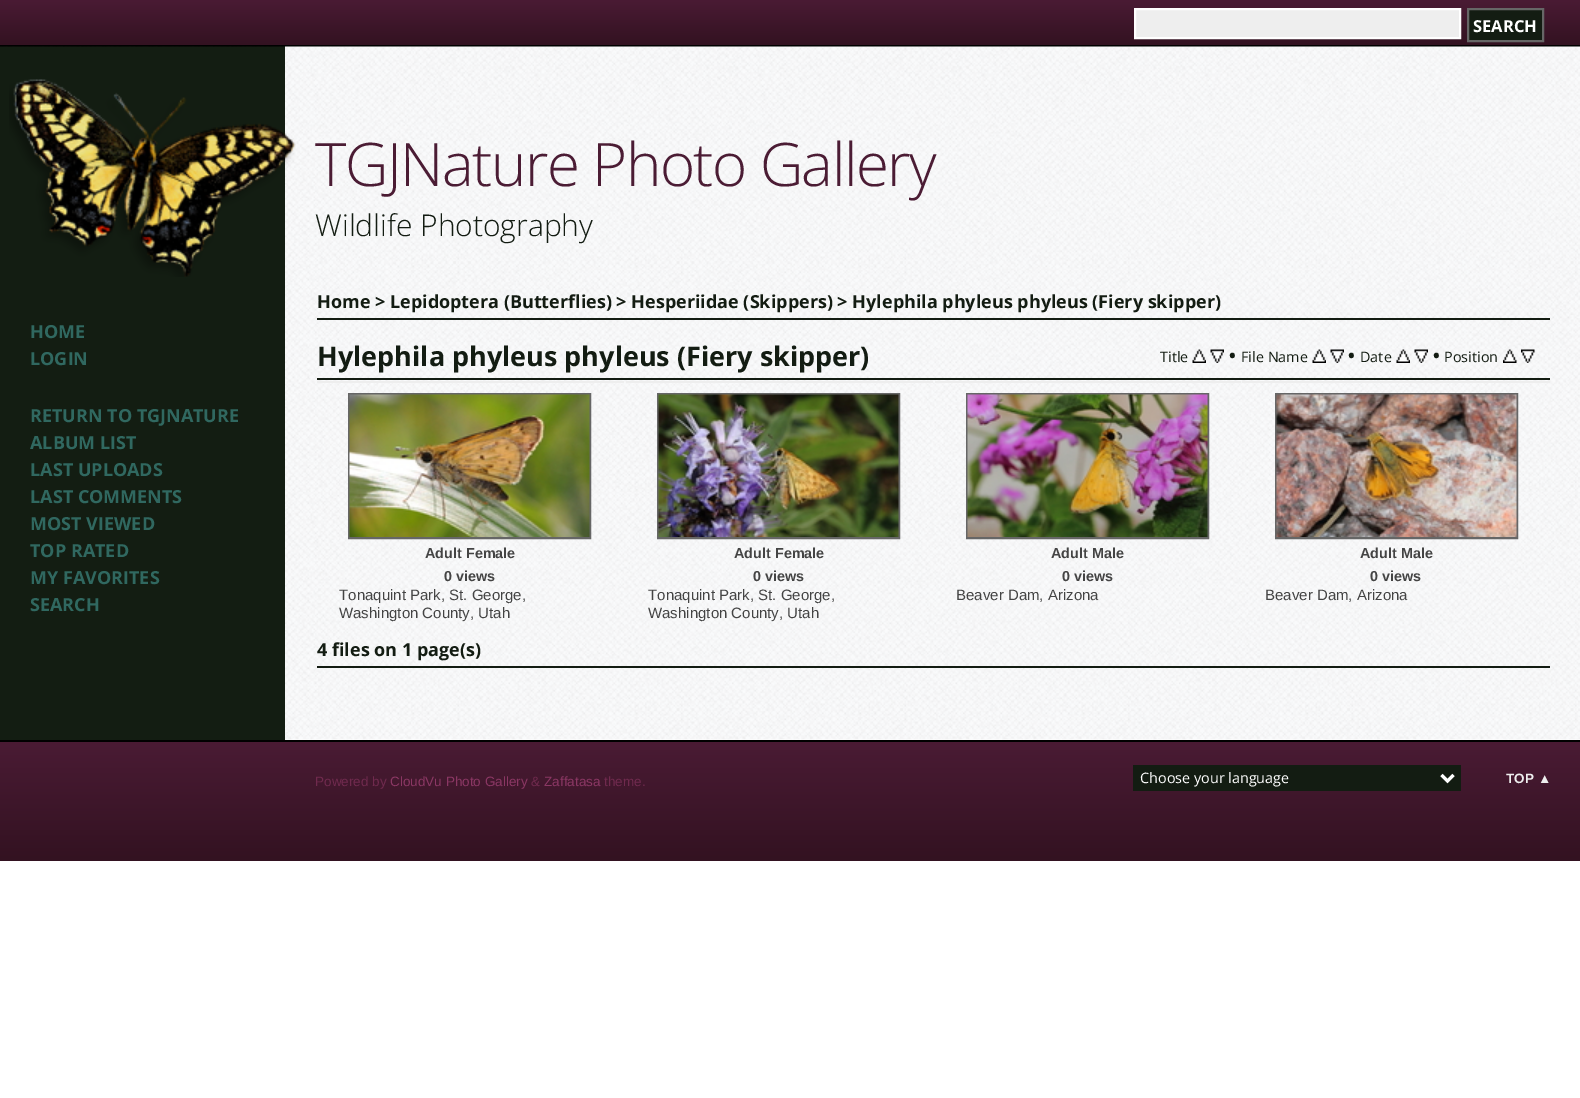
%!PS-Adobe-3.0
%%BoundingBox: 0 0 1580 1098
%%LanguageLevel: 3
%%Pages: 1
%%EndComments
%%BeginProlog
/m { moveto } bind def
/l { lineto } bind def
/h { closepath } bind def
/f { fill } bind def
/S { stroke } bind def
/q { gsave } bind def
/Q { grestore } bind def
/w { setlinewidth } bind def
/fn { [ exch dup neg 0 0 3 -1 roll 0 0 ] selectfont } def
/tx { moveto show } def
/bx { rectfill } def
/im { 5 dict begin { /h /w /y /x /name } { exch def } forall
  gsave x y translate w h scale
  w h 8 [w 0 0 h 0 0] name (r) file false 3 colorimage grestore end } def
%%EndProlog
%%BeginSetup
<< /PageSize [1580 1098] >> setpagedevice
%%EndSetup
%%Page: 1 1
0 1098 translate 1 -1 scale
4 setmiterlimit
1 setgray
0 0 1580 1098 bx
q 0 0 m 1580 0 l 1580 45 l 0 45 l h clip newpath
<< /ShadingType 2 /ColorSpace /DeviceRGB /Coords [791 0 791 45] /Extend [true true] /Function << /FunctionType 2 /Domain [0 1] /C0 [0.29 0.106 0.204] /C1 [0.2 0.071 0.129] /N 1 >> >> shfill Q
0 setgray
0 45 1580 2 bx
0.933 setgray
1135 9 m 1460 9 l 1460 38 l 1135 38 l h q f Q
1 setgray
2 w
S
0.075 0.11 0.071 setrgbcolor
1468 9 m 1543 9 l 1543 41 l 1468 41 l h q f Q
0.4 setgray
S
/OpenSans-Bold 16.5 fn
1 setgray
(SEARCH) 1473 32 tx
0.075 0.114 0.071 setrgbcolor
0 47 285 693 bx
(image0.raw) 0 46 285 1 im
(image2.raw) 285 46 1295 694 im
(image1.raw) 9 79 287 198 im
/OpenSans-Bold 18 fn
0.188 0.408 0.376 setrgbcolor
(HOME) 30 338 tx
(LOGIN) 30 365 tx
(RETURN TO TGJNATURE) 30 422 tx
(ALBUM LIST) 30 449 tx
(LAST UPLOADS) 30 476 tx
(LAST COMMENTS) 30 503 tx
(MOST VIEWED) 30 530 tx
(TOP RATED) 30 557 tx
(MY FAVORITES) 30 584 tx
(SEARCH) 30 611 tx
/OpenSans-Light 60 fn
0.294 0.11 0.204 setrgbcolor
315 186 m -1.5 0 (TGJNature Photo Gallery) ashow
/OpenSans-Light 30 fn
0.075 0.11 0.071 setrgbcolor
(Wildlife Photography) 315 236 tx
317 318 1233 2 bx
/OpenSans-Bold 18 fn
(Home > Lepidoptera \(Butterflies\) > Hesperiidae \(Skippers\) > Hylephila phyleus phyleus \(Fiery skipper\)) 317 308 tx
317 378 1233 2 bx
/OpenSans-Bold 27 fn
(Hylephila phyleus phyleus \(Fiery skipper\)) 317 366 tx
/OpenSans-Regular 14.4 fn
(Title) 1160 362 tx
(image3.raw) 1192 349 14 14 im
(image4.raw) 1210 349 14 14 im
/OpenSans-Bold 18 fn
(•) 1229 362 tx
/OpenSans-Regular 14.4 fn
(File Name) 1241 362 tx
(image5.raw) 1312 349 14 14 im
(image6.raw) 1330 349 14 14 im
/OpenSans-Bold 18 fn
(•) 1348 362 tx
/OpenSans-Regular 14.4 fn
(Date) 1360 362 tx
(image7.raw) 1396 349 14 14 im
(image8.raw) 1414 349 14 14 im
/OpenSans-Bold 18 fn
(•) 1433 362 tx
/OpenSans-Regular 14.4 fn
(Position) 1444 362 tx
(image9.raw) 1503 349 14 14 im
(image10.raw) 1521 349 14 14 im
0.933 setgray
317 381 307 2 bx
0.4 setgray
349 394 241 144 rectstroke
(image11.raw) 349 394 241 143 im
/LiberationSans-Bold 14.4 fn
0.267 setgray
(Adult Female) 425 558 tx
(0 views) 444 581 tx
/LiberationSans-Regular 15 fn
(Tonaquint Park, St. George,) 339 600 tx
(Washington County, Utah) 339 618 tx
0.933 setgray
626 381 307 2 bx
0.4 setgray
658 394 241 144 rectstroke
(image12.raw) 658 394 241 143 im
/LiberationSans-Bold 14.4 fn
0.267 setgray
(Adult Female) 734 558 tx
(0 views) 753 581 tx
/LiberationSans-Regular 15 fn
(Tonaquint Park, St. George,) 648 600 tx
(Washington County, Utah) 648 618 tx
0.933 setgray
935 381 306 2 bx
0.4 setgray
967 394 241 144 rectstroke
(image13.raw) 967 394 241 143 im
/LiberationSans-Bold 14.4 fn
0.267 setgray
(Adult Male) 1051 558 tx
(0 views) 1062 581 tx
/LiberationSans-Regular 15 fn
(Beaver Dam, Arizona) 956 600 tx
0.933 setgray
1242 381 308 2 bx
0.4 setgray
1276 394 241 144 rectstroke
(image14.raw) 1276 394 241 143 im
/LiberationSans-Bold 14.4 fn
0.267 setgray
(Adult Male) 1360 558 tx
(0 views) 1370 581 tx
/LiberationSans-Regular 15 fn
(Beaver Dam, Arizona) 1265 600 tx
0.075 0.11 0.071 setrgbcolor
317 666 1233 2 bx
/OpenSans-Bold 18 fn
(4 files on 1 page\(s\)) 317 656 tx
q 0 742 m 1580 742 l 1580 861 l 0 861 l h clip newpath
<< /ShadingType 2 /ColorSpace /DeviceRGB /Coords [791 741 791 861] /Extend [true true] /Function << /FunctionType 2 /Domain [0 1] /C0 [0.29 0.106 0.204] /C1 [0.2 0.071 0.129] /N 1 >> >> shfill Q
0 setgray
0 740 1580 2 bx
/LiberationSans-Regular 13.5 fn
0.439 0.165 0.306 setrgbcolor
(Powered by) 315 786 tx
0.545 0.216 0.392 setrgbcolor
(CloudVu Photo Gallery) 390 786 tx
0.439 0.165 0.306 setrgbcolor
(&) 531 786 tx
0.545 0.216 0.392 setrgbcolor
(Zaffatasa) 544 786 tx
0.439 0.165 0.306 setrgbcolor
(theme.) 604 786 tx
0.075 0.11 0.071 setrgbcolor
1133 765 328 26 bx
1 setgray
3 w
1441.5 775 m 1447.5 781 l 1453.5 775 l S
/OpenSans-Regular 14.4 fn
(Choose your language) 1140 783 tx
/LiberationSans-Bold 13.5 fn
0.933 setgray
(TOP ▲) 1506 783 tx
showpage
%%EOF
